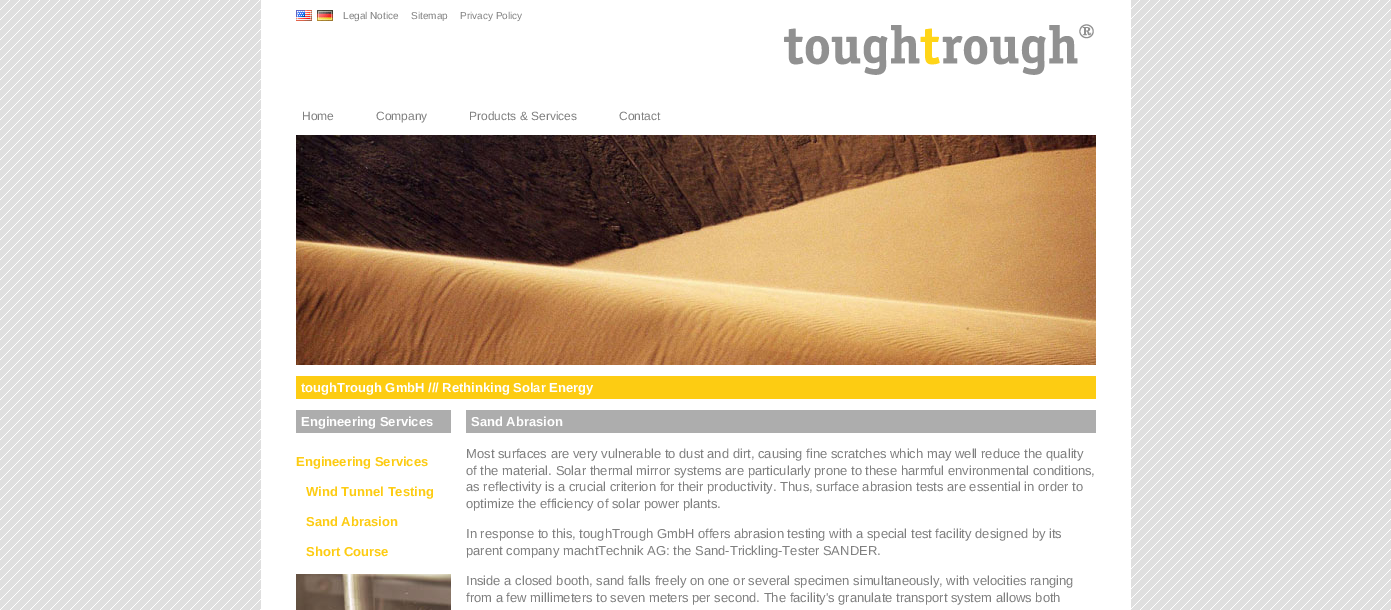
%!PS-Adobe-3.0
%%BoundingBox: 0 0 1391 610
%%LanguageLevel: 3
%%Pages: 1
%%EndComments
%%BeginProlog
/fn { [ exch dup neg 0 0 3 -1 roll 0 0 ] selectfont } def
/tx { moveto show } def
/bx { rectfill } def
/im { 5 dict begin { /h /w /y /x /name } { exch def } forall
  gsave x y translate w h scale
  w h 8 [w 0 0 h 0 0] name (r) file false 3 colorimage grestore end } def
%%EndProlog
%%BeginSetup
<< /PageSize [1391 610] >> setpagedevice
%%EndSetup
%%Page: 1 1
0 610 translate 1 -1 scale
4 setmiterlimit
1 setgray
0 0 1391 610 bx
(image0.raw) 0 0 1391 610 im
261 0 870 610 bx
(image1.raw) 296 10 16 11 im
(image2.raw) 317 10 16 11 im
/LiberationSans-Regular 10 fn
0.498 setgray
(Legal Notice) 343 19 tx
(Sitemap) 411 19 tx
(Privacy Policy) 460 19 tx
(image3.raw) 784 24 310 51 im
/LiberationSans-Regular 12 fn
(Home) 302 120 tx
(Company) 376 120 tx
(Products & Services) 469 120 tx
(Contact) 619 120 tx
(image4.raw) 296 135 800 230 im
0.992 0.8 0.071 setrgbcolor
296 376 800 23 bx
/LiberationSans-Bold 13 fn
1 setgray
(toughTrough GmbH /// Rethinking Solar Energy) 301 392 tx
0.678 setgray
296 410 155 23 bx
1 setgray
(Engineering Services) 301 426 tx
0.992 0.8 0.071 setrgbcolor
(Engineering Services) 296 466 tx
(Wind Tunnel Testing) 306 496 tx
(Sand Abrasion) 306 526 tx
(Short Course) 306 556 tx
(image5.raw) 296 574 155 36 im
0.678 setgray
466 410 630 23 bx
1 setgray
(Sand Abrasion) 471 426 tx
/LiberationSans-Regular 13 fn
0.498 setgray
(Most surfaces are very vulnerable to dust and dirt, causing fine scratches which may well reduce the quality) 466 458 tx
(of the material. Solar thermal mirror systems are particularly prone to these harmful environmental conditions,) 466 475 tx
(as reflectivity is a crucial criterion for their productivity. Thus, surface abrasion tests are essential in order to) 466 491 tx
(optimize the efficiency of solar power plants.) 466 508 tx
(In response to this, toughTrough GmbH offers abrasion testing with a special test facility designed by its) 466 538 tx
(parent company machtTechnik AG: the Sand-Trickling-Tester SANDER.) 466 555 tx
(Inside a closed booth, sand falls freely on one or several specimen simultaneously, with velocities ranging) 466 585 tx
(from a few millimeters to seven meters per second. The facility's granulate transport system allows both) 466 602 tx
showpage
%%EOF
